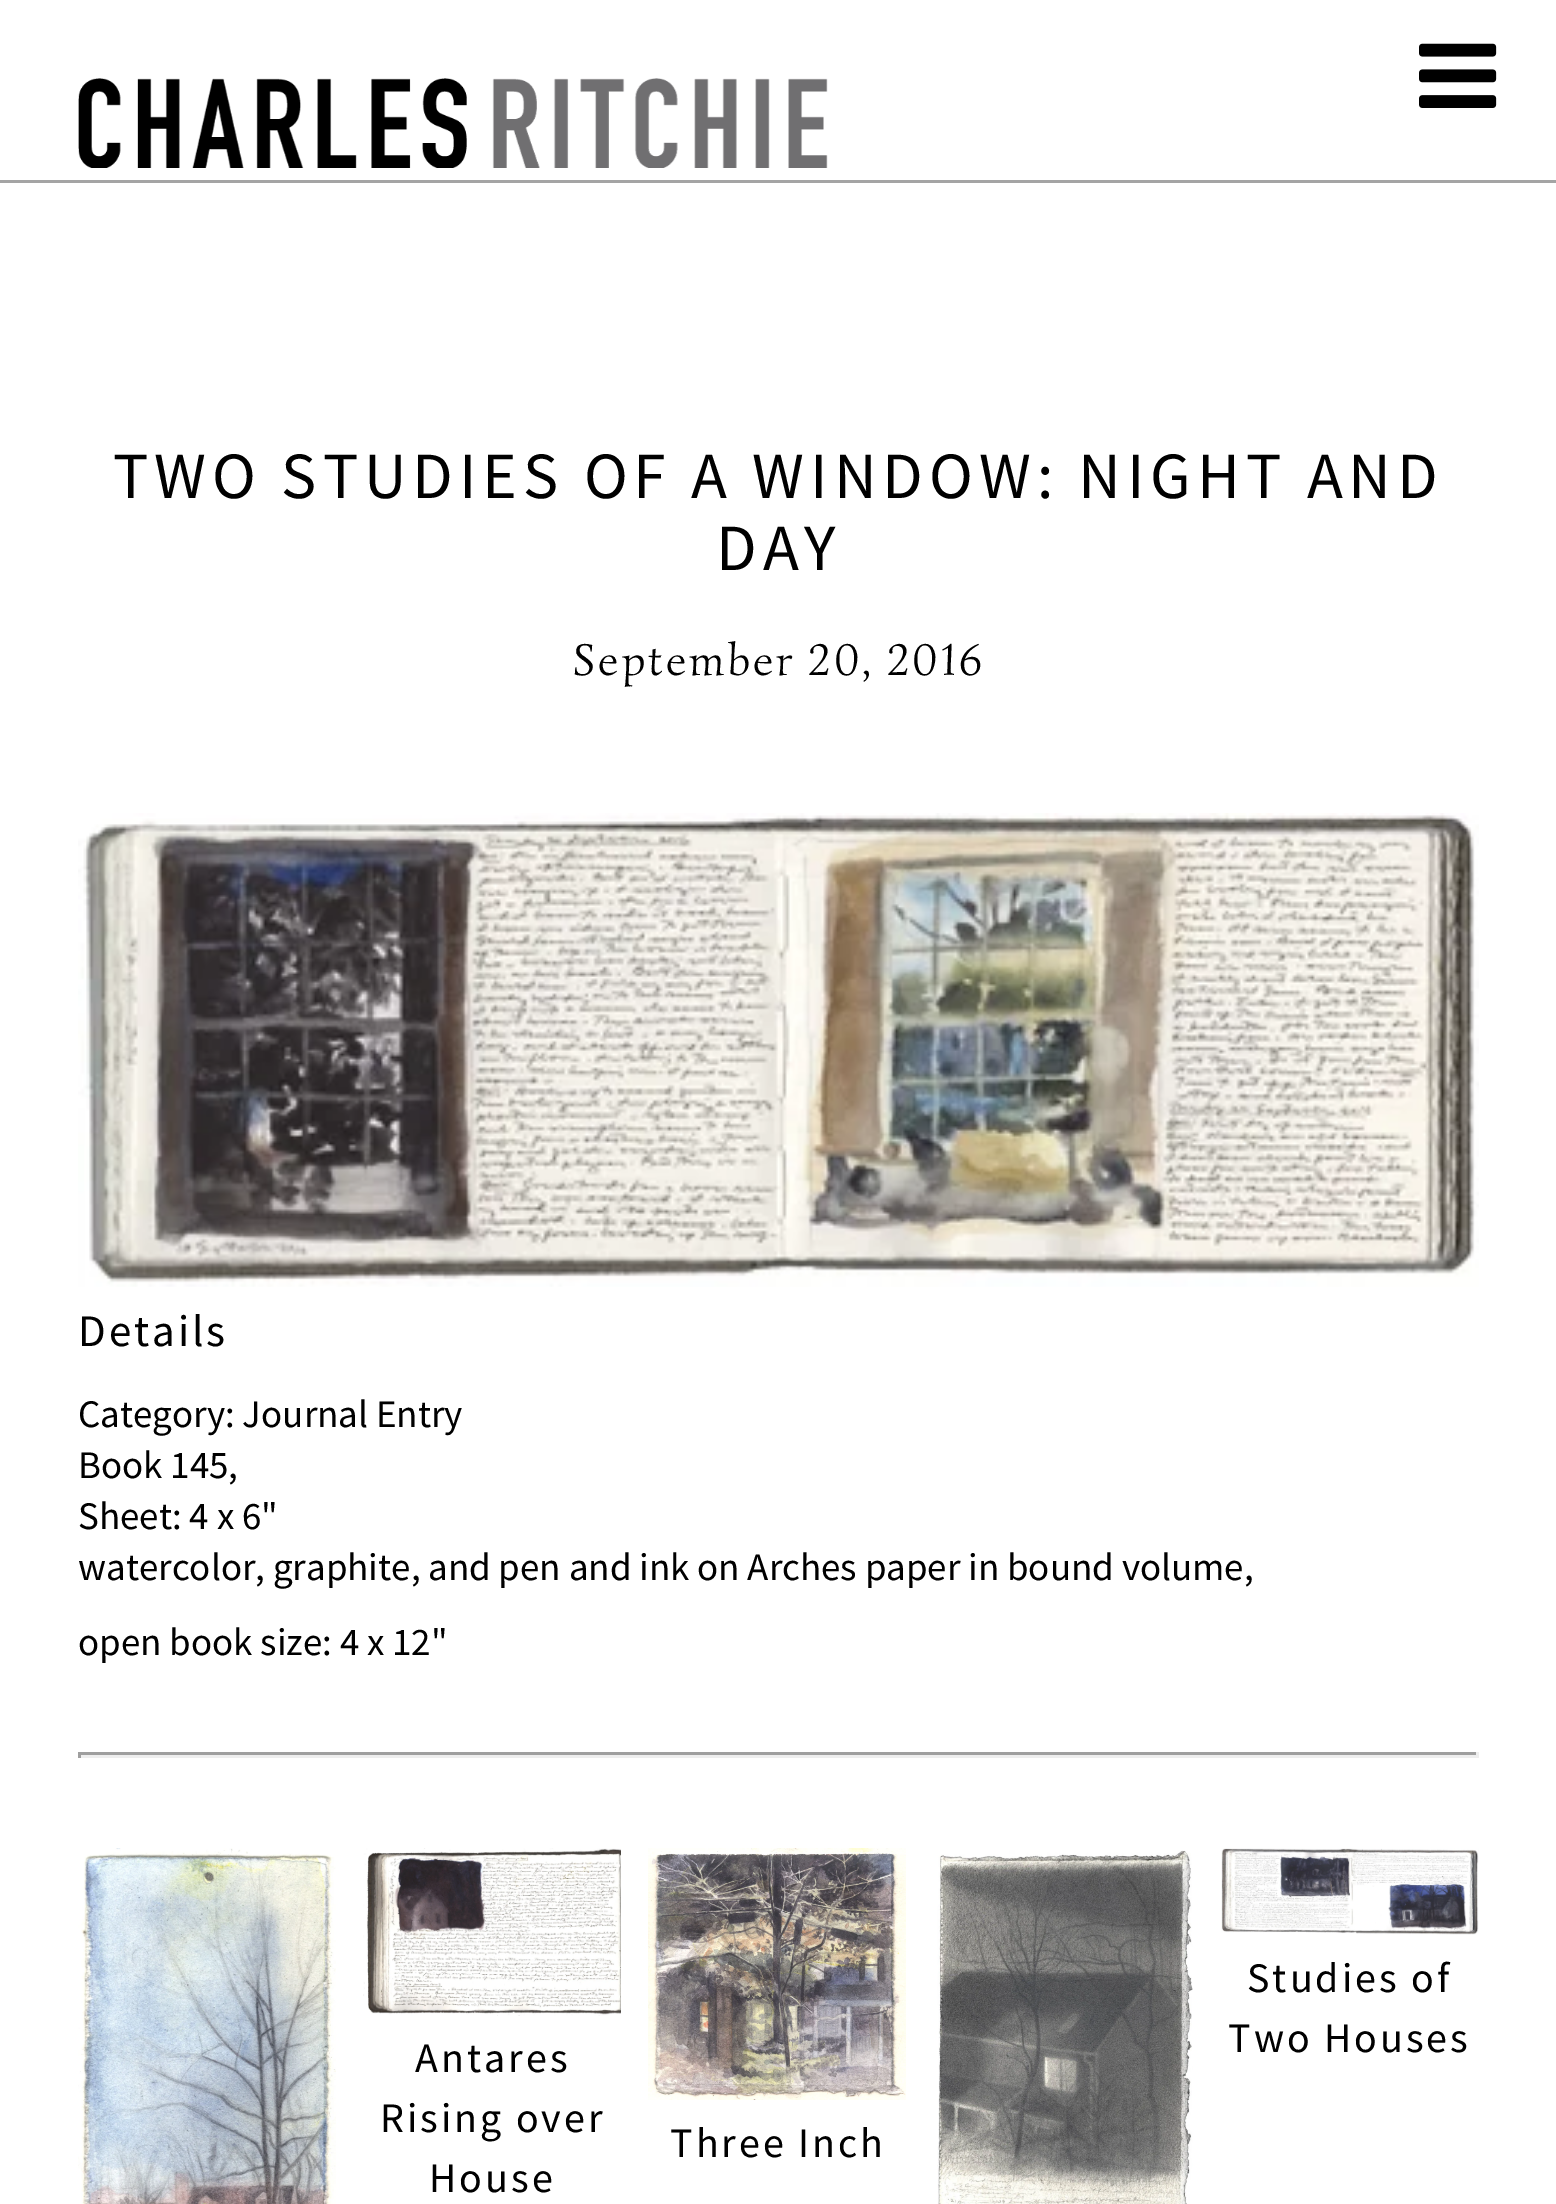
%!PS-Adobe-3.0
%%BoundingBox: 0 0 1556 2204
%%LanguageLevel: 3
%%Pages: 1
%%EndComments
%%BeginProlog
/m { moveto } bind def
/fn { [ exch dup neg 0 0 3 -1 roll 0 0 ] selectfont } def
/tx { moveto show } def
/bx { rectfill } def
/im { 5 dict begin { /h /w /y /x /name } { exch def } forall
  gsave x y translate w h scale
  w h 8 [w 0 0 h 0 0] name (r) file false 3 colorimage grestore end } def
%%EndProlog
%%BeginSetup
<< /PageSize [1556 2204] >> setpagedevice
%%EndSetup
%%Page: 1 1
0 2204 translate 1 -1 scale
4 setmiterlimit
1 setgray
0 0 1556 2204 bx
0.643 setgray
0 180 1556 3 bx
(image0.raw) 78 78 750 90 im
(image1.raw) 1419 43 78 65 im
/SourceSansPro-Regular 66 fn
0 setgray
113 498 m 6 0 (TWO STUDIES OF A WINDOW: NIGHT AND) ashow
716 570 m 6 0 (DAY) ashow
/Simonetta-Regular 45 fn
573 675 m 3 0 (September 20, 2016) ashow
(image2.raw) 78 813 1401 474 im
/SourceSansPro-Regular 45 fn
78 1346 m 3 0 (Details) ashow
/SourceSansPro-Regular 39 fn
(Category: Journal Entry) 78 1427 tx
(Book 145,) 78 1478 tx
(Sheet: 4 x 6") 78 1529 tx
(watercolor, graphite, and pen and ink on Arches paper in bound volume,) 78 1580 tx
(open book size: 4 x 12") 78 1655 tx
0.624 setgray
78 1752 1401 3 bx
0.933 setgray
1476 1752 3 6 bx
78 1755 1401 3 bx
0.624 setgray
78 1752 3 6 bx
(image3.raw) 78 1848 258 356 im
(image4.raw) 937 1850 256 354 im
(image5.raw) 1221 1848 258 87 im
/SourceSansPro-Regular 42 fn
0 setgray
1247 1992 m 3 0 (Studies of) ashow
1228 2052 m 3 0 (Two Houses) ashow
(image6.raw) 363 1848 258 168 im
415 2072 m 3 0 (Antares) ashow
380 2132 m 3 0 (Rising over) ashow
429 2192 m 3 0 (House) ashow
(image7.raw) 648 1848 258 252 im
670 2157 m 3 0 (Three Inch) ashow
showpage
%%EOF
